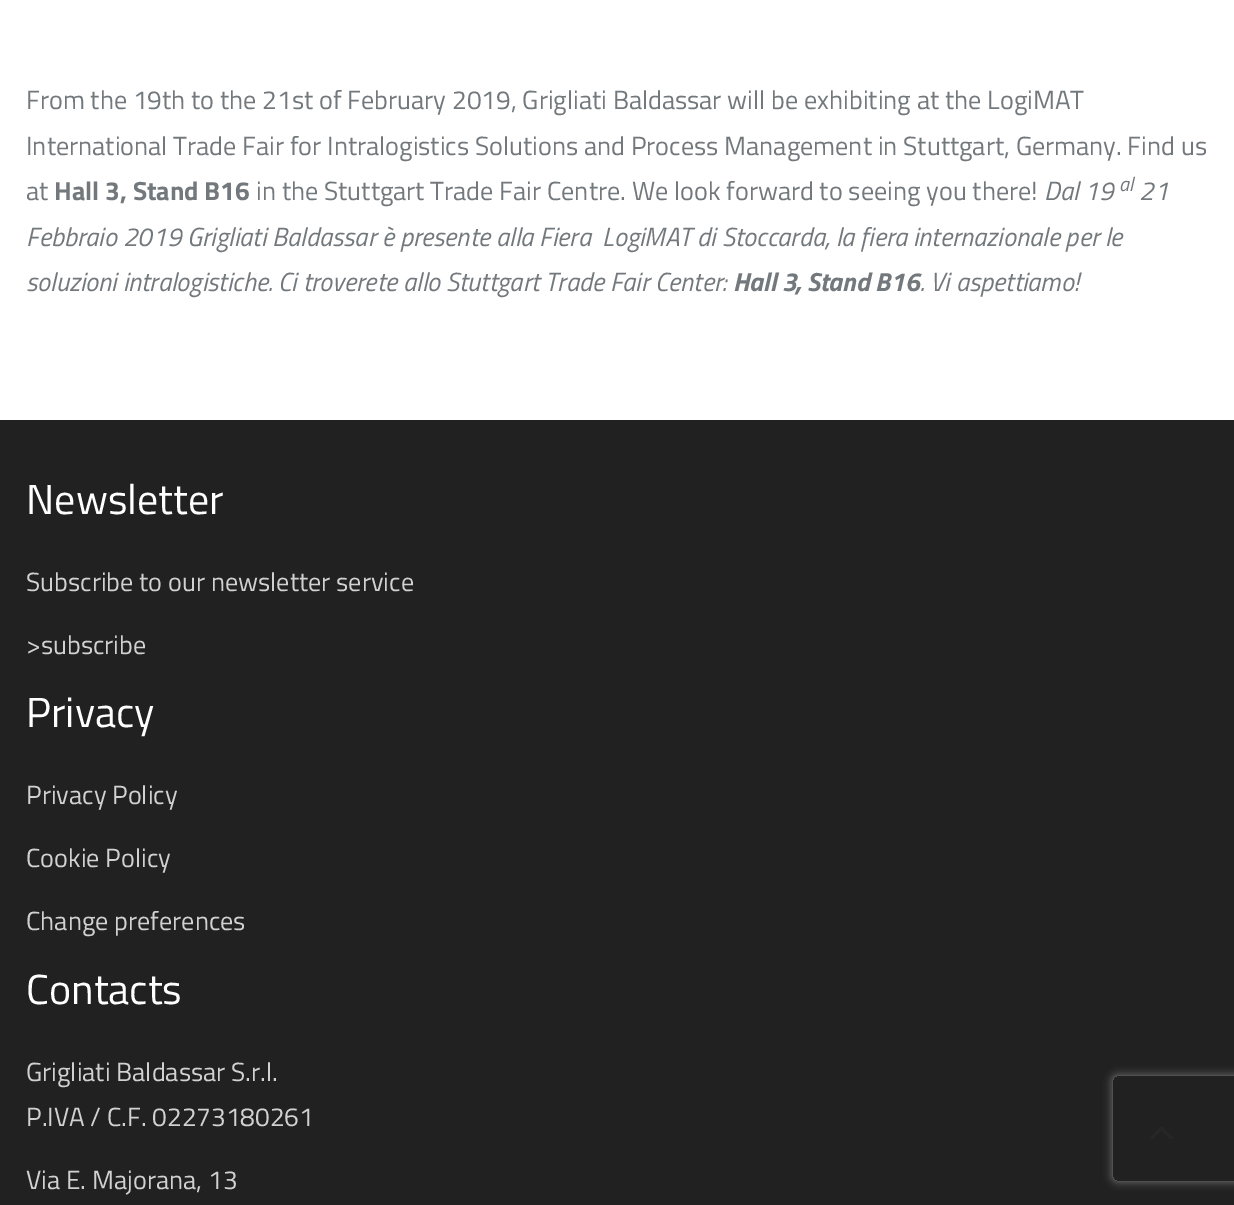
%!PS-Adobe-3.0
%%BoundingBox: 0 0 1234 1205
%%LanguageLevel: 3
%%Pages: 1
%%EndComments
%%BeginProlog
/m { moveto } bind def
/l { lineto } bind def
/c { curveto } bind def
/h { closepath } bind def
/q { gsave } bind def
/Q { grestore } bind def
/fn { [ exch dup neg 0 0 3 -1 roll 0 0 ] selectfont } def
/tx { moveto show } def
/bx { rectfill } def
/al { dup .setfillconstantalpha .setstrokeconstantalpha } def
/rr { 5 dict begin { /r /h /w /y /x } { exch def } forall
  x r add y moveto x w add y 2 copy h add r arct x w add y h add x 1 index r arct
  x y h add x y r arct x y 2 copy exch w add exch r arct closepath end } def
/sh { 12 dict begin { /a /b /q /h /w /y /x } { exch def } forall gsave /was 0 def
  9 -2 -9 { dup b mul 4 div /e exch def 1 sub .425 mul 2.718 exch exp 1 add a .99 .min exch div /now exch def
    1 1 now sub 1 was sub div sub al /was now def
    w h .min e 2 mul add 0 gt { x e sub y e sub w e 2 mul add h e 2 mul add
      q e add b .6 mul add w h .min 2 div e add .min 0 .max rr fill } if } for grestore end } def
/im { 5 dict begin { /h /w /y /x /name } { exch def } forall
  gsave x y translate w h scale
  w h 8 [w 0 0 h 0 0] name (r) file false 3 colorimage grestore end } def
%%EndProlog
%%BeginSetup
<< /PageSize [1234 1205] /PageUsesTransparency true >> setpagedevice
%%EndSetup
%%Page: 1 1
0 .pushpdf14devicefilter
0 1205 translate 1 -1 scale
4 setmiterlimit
1 setgray
0 0 1234 1205 bx
/TitilliumWeb-Regular 26.25 fn
0.447 0.471 0.482 setrgbcolor
(From the 19th to the 21st of February 2019, Grigliati Baldassar will be exhibiting at the LogiMAT) 26 109 tx
(International Trade Fair for Intralogistics Solutions and Process Management in Stuttgart, Germany. Find us) 26 155 tx
(at) 26 200 tx
/TitilliumWeb-Bold 26.25 fn
(Hall 3, Stand B16) 54 200 tx
/TitilliumWeb-Regular 26.25 fn
(in the Stuttgart Trade Fair Centre. We look forward to seeing you there!) 256 200 tx
/TitilliumWeb-Italic 26.25 fn
(Dal 19) 1044 200 tx
/TitilliumWeb-Italic 20 fn
(al) 1119 191 tx
/TitilliumWeb-Italic 26.25 fn
(21) 1139 200 tx
(Febbraio 2019 Grigliati Baldassar è presente alla Fiera  LogiMAT di Stoccarda, la fiera internazionale per le) 26 246 tx
(soluzioni intralogistiche. Ci troverete allo Stuttgart Trade Fair Center:) 26 291 tx
/TitilliumWeb-BoldItalic 26.25 fn
(Hall 3, Stand B16) 733 291 tx
/TitilliumWeb-Italic 26.25 fn
(. Vi aspettiamo!) 920 291 tx
0.129 setgray
0 420 1234 785 bx
/TitilliumWeb-Regular 42 fn
1 setgray
(Newsletter) 26 514 tx
/TitilliumWeb-Regular 26.25 fn
0.82 setgray
(Subscribe to our newsletter service) 26 591 tx
(>subscribe) 26 654 tx
/TitilliumWeb-Regular 42 fn
1 setgray
(Privacy) 26 727 tx
/TitilliumWeb-Regular 26.25 fn
0.82 setgray
(Privacy Policy) 26 804 tx
(Cookie Policy) 26 867 tx
(Change preferences) 26 930 tx
/TitilliumWeb-Regular 42 fn
1 setgray
(Contacts) 26 1004 tx
/TitilliumWeb-Regular 26.25 fn
0.82 setgray
(Grigliati Baldassar S.r.l.) 26 1081 tx
(P.IVA / C.F. 02273180261) 26 1126 tx
(Via E. Majorana, 13) 26 1189 tx
q
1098 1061 m 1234 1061 l 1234 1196 l 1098 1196 l h 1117 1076 m 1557 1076 l 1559 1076 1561 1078 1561 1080 c 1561 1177 l 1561 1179 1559 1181 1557 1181 c 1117 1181 l 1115 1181 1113 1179 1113 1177 c 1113 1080 l 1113 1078 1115 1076 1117 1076 c h eoclip newpath
0.502 setgray
1113 1076 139 105 4 4.5 1 sh
Q
(image0.raw) 1150 1127 23 12 im
.poppdf14devicefilter showpage
%%EOF
